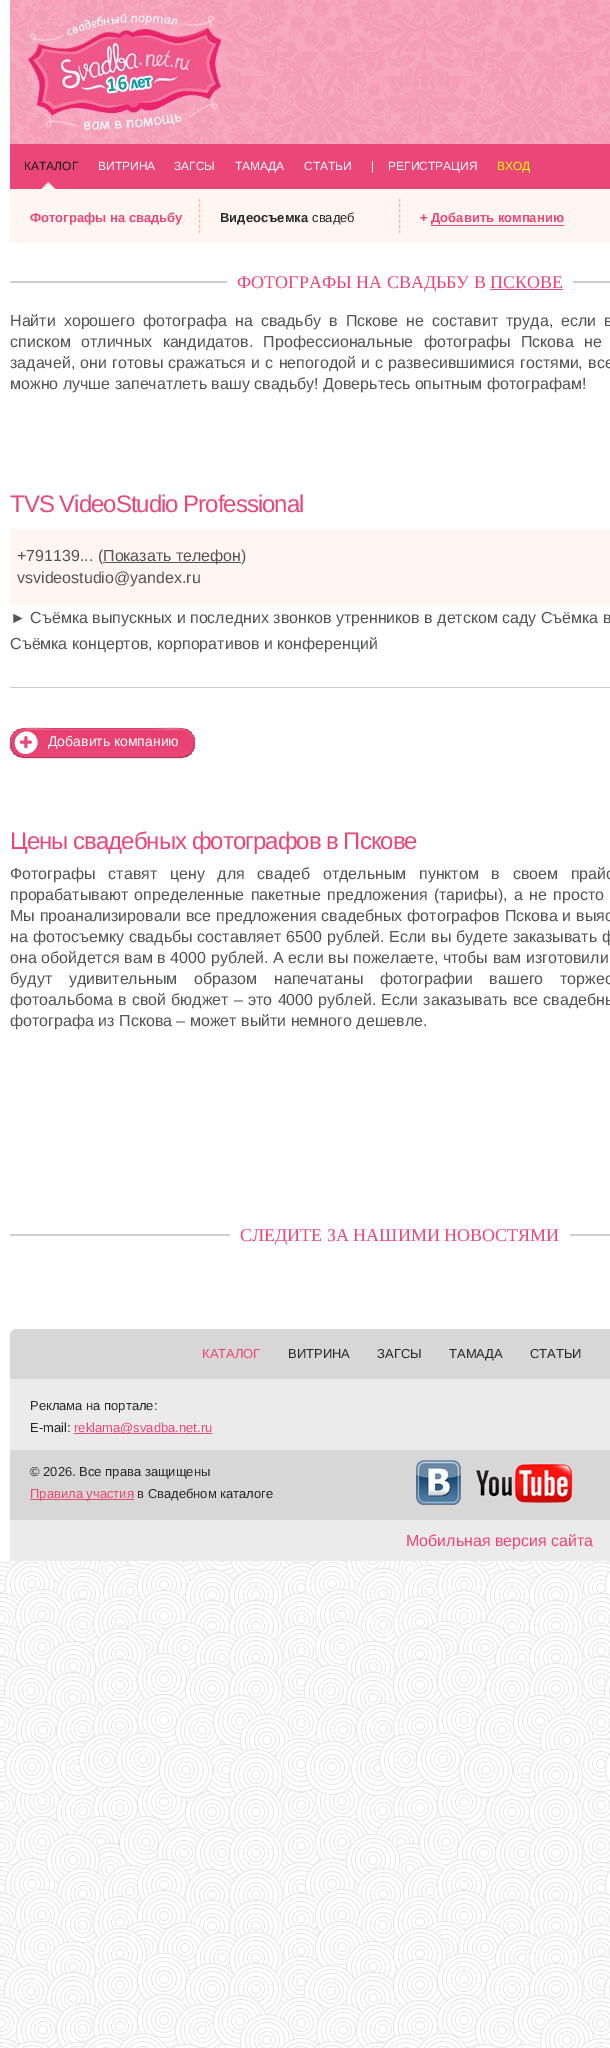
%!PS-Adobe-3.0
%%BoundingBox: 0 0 610 2048
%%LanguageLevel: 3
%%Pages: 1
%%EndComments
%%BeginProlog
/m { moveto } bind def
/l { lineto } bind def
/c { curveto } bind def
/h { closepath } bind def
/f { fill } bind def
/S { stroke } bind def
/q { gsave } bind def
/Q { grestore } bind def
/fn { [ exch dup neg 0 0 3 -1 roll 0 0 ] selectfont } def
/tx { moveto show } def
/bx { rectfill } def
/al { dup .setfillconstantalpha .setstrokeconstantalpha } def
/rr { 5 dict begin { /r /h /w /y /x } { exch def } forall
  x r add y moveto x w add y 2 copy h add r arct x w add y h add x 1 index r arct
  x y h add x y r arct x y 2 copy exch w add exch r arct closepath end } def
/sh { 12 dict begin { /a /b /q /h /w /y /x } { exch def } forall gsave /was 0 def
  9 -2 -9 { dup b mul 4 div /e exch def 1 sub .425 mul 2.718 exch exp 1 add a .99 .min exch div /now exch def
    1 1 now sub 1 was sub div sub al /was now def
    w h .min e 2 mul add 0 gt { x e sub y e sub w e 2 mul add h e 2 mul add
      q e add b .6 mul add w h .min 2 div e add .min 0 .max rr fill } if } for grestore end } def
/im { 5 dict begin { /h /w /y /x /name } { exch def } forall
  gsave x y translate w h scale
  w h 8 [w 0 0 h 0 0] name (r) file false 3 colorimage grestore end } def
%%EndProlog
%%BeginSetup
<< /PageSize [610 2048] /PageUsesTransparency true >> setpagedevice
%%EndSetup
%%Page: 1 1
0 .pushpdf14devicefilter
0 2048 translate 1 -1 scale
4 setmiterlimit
1 setgray
0 0 610 2048 bx
(image0.raw) 0 1561 610 487 im
(image1.raw) 10 0 600 144 im
(image2.raw) 27 0 196 144 im
0.918 0.275 0.471 setrgbcolor
10 144 600 45 bx
/LiberationSans-Regular 12 fn
0.094 setgray
(КАТАЛОГ) 24 170 tx
1 setgray
(ВИТРИНА) 98 170 tx
(ЗАГСЫ) 174 170 tx
(ТАМАДА) 235 170 tx
(СТАТЬИ) 304 170 tx
(|) 371 170 tx
(РЕГИСТРАЦИЯ) 388 170 tx
1 1 0 setrgbcolor
(ВХОД) 497 170 tx
(image3.raw) 41 182 15 7 im
1 0.965 0.949 setrgbcolor
10 189 600 54 bx
0.988 0.714 0.592 setrgbcolor
[3 2.17] 0 setdash
199.5 199 m 199.5 233 l S
/LiberationSans-Bold 13 fn
0.918 0.275 0.471 setrgbcolor
(Фотографы на свадьбу) 30 222 tx
0.988 0.714 0.592 setrgbcolor
399.5 199 m 399.5 233 l S
0.157 setgray
(Видеосъемка) 220 222 tx
/LiberationSans-Regular 13 fn
(свадеб) 312 222 tx
/LiberationSans-Bold 13 fn
0.918 0.275 0.471 setrgbcolor
(+ Добавить компанию) 420 222 tx
0.925 0.282 0.482 setrgbcolor
431 225 133 1 bx
0.808 setgray
10 281 600 2 bx
1 setgray
227 281 346 2 bx
/LiberationSerif-Regular 18 fn
0.918 0.275 0.471 setrgbcolor
(ФОТОГРАФЫ НА СВАДЬБУ В ПСКОВЕ) 237 288 tx
490 289 73 1 bx
/LiberationSans-Regular 16 fn
0.325 0.329 0.329 setrgbcolor
10 326 m 3.6 0 32 (Найти хорошего фотографа на свадьбу в Пскове не составит труда, если в) widthshow
10 347 m 6 0 32 (списком отличных кандидатов. Профессиональные фотографы Пскова не) widthshow
10 368 m 0.75 0 32 (задачей, они готовы сражаться и с непогодой и с развесившимися гостями, все) widthshow
(можно лучше запечатлеть вашу свадьбу! Доверьтесь опытным фотографам!) 10 389 tx
0.8 setgray
10 687 600 1 bx
/LiberationSans-Regular 24 fn
0.918 0.275 0.471 setrgbcolor
10 512 m -1 0 (TVS VideoStudio Professional) ashow
1 0.965 0.953 setrgbcolor
10 529 600 76 bx
/LiberationSans-Regular 16 fn
0.325 0.329 0.329 setrgbcolor
(+791139... \() 17 561 tx
103 562 138 1 bx
(Показать телефон\)) 103 561 tx
(vsvideostudio@yandex.ru) 17 583 tx
(► Съёмка выпускных и последних звонков утренников в детском саду Съёмка в) 10 623 tx
(Съёмка концертов, корпоративов и конференций) 10 649 tx
0 setgray
10 729 185 30 15 1 0.05 sh
0.918 0.275 0.471 setrgbcolor
10 728 185 30 15 rr f
q
10 728 185 30 15 rr clip newpath
q 10 729 m 195 729 l 195 757 l 10 757 l h clip newpath
<< /ShadingType 2 /ColorSpace /DeviceRGB /Coords [103 729 103 757] /Extend [true true] /Function << /FunctionType 2 /Domain [0 1] /C0 [0.91 0.251 0.427] /C1 [0.918 0.275 0.471] /N 1 >> >> shfill Q
Q
0.2 al
1 setgray
25 730 m 180 730 l 188 730 194 736 194 743 c 195 723 164 729 154 729 c 51 729 l 41 729 10 723 11 743 c 11 736 17 730 25 730 c h f
0.25 al
0 setgray
[] 0 setdash
190.5 753.5 m 187.5 756 184 757.5 180 757.5 c 25 757.5 l 21 757.5 17.5 756 14.5 753.5 c S
0.1 al
14.5 753.5 m 11.5 750 10 745 11 740 c 14 723 40.5 728.5 51 728.5 c 154 728.5 l 164.5 728.5 191 723 194 740 c 195 745 193.5 750 190.5 753.5 c S
1 al
1 setgray
36 737 m 43 749.5 24 761 16.5 748.5 c 9 735.5 28.5 724.5 36 737 c h f
(image4.raw) 20 736 12 12 im
/LiberationSans-Regular 14 fn
(Добавить компанию) 48 746 tx
/LiberationSans-Regular 24 fn
0.918 0.275 0.471 setrgbcolor
10 849 m -1 0 (Цены свадебных фотографов в Пскове) ashow
/LiberationSans-Regular 16 fn
0.325 0.329 0.329 setrgbcolor
10 879 m 8.25 0 32 (Фотографы ставят цену для свадеб отдельным пунктом в своем прайс) widthshow
10 900 m 2 0 32 (прорабатывают определенные пакетные предложения \(тарифы\), а не просто) widthshow
10 921 m 0.5 0 32 (Мы проанализировали все предложения свадебных фотографов Пскова и выяс) widthshow
10 942 m 0.5 0 32 (на фотосъемку свадьбы составляет 6500 рублей. Если вы будете заказывать ф) widthshow
10 963 m 0.25 0 32 (она обойдется вам в 4000 рублей. А если вы пожелаете, чтобы вам изготовили) widthshow
10 984 m 12.25 0 32 (будут удивительным образом напечатаны фотографии вашего торжес) widthshow
10 1005 m 0.75 0 32 (фотоальбома в свой бюджет – это 4000 рублей. Если заказывать все свадебны) widthshow
(фотографа из Пскова – может выйти немного дешевле.) 10 1026 tx
0.808 setgray
10 1234 600 2 bx
1 setgray
230 1234 340 2 bx
/LiberationSerif-Regular 18 fn
0.918 0.275 0.471 setrgbcolor
(СЛЕДИТЕ ЗА НАШИМИ НОВОСТЯМИ) 240 1241 tx
0.922 setgray
17 1329 m 610 1329 l 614 1329 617 1332 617 1336 c 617 1561 l 10 1561 l 10 1336 l 10 1332 13 1329 17 1329 c h f
0.843 setgray
17 1329 m 610 1329 l 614 1329 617 1332 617 1336 c 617 1379 l 10 1379 l 10 1336 l 10 1332 13 1329 17 1329 c h f
/LiberationSans-Regular 13 fn
0.918 0.275 0.471 setrgbcolor
(КАТАЛОГ) 202 1358 tx
0.157 setgray
(ВИТРИНА) 288 1358 tx
(ЗАГСЫ) 377 1358 tx
(ТАМАДА) 449 1358 tx
(СТАТЬИ) 530 1358 tx
(Реклама на портале:) 30 1410 tx
(E-mail:) 30 1432 tx
0.925 0.286 0.482 setrgbcolor
74 1433 138 1 bx
0.918 0.275 0.471 setrgbcolor
(reklama@svadba.net.ru) 74 1432 tx
0.843 setgray
10 1450 600 70 bx
0.157 setgray
(© 2026. Все права защищены) 30 1476 tx
0.925 0.286 0.482 setrgbcolor
30 1499 104 1 bx
0.918 0.275 0.471 setrgbcolor
(Правила участия) 30 1498 tx
0.157 setgray
(в Свадебном каталоге) 137 1498 tx
(image5.raw) 416 1460 45 45 im
(image6.raw) 475 1463 98 40 im
/LiberationSans-Regular 16 fn
0.918 0.275 0.471 setrgbcolor
(Мобильная версия сайта) 406 1546 tx
.poppdf14devicefilter showpage
%%EOF
